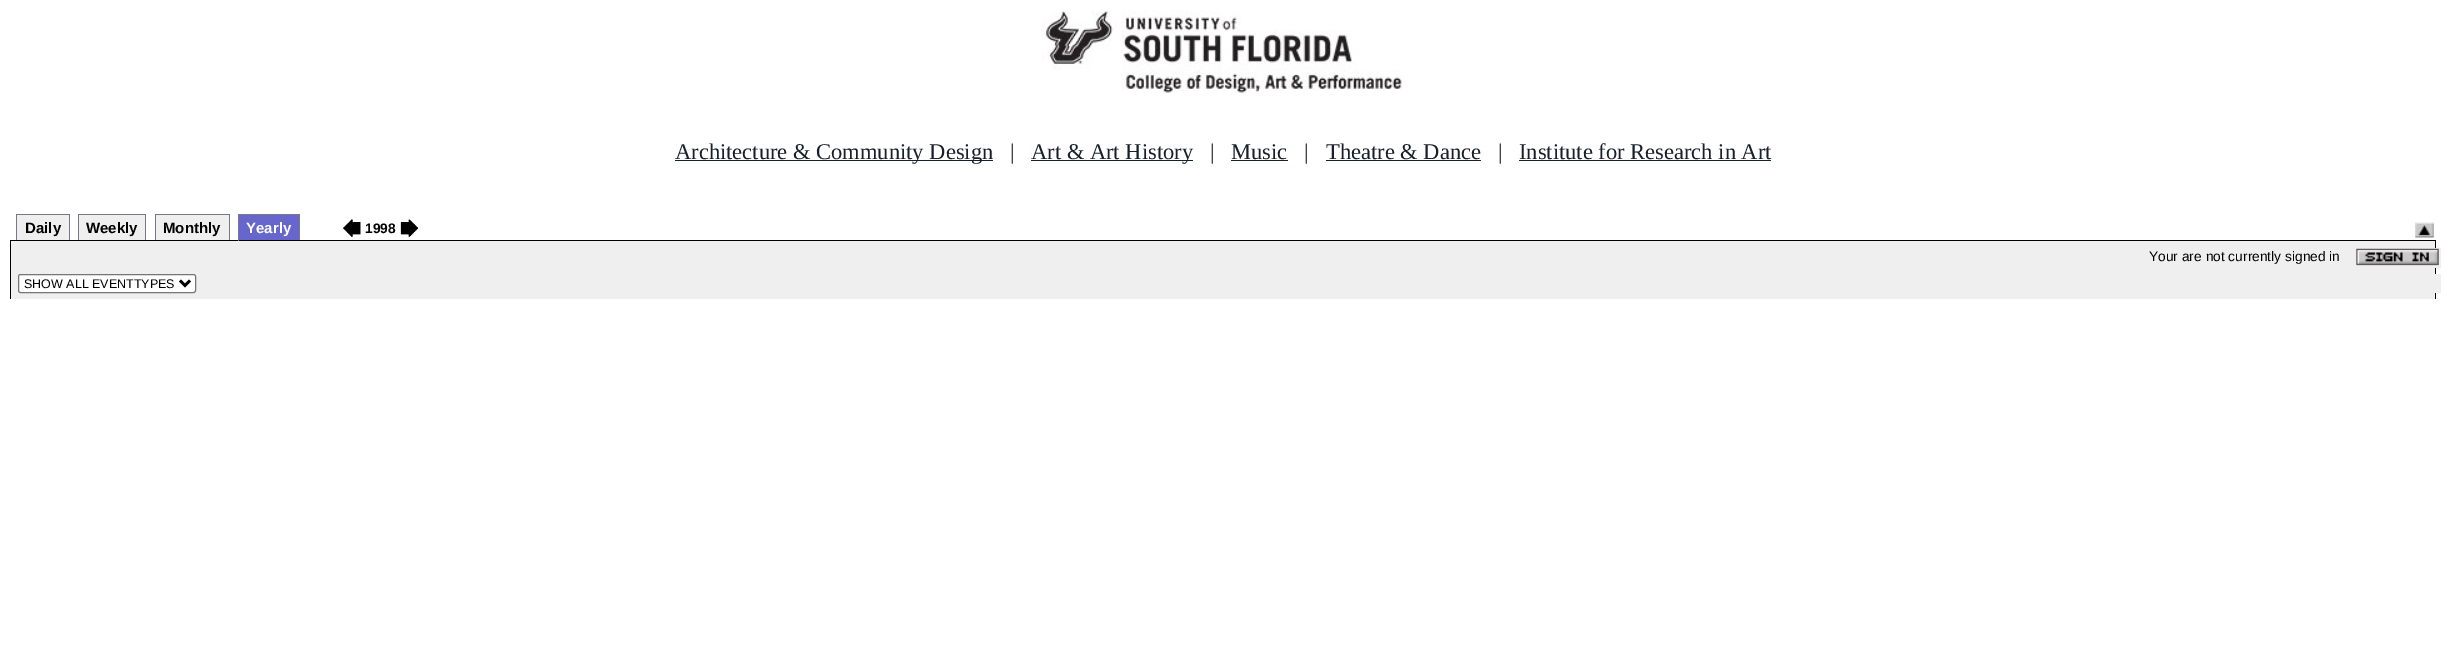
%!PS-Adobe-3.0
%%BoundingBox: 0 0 2446 653
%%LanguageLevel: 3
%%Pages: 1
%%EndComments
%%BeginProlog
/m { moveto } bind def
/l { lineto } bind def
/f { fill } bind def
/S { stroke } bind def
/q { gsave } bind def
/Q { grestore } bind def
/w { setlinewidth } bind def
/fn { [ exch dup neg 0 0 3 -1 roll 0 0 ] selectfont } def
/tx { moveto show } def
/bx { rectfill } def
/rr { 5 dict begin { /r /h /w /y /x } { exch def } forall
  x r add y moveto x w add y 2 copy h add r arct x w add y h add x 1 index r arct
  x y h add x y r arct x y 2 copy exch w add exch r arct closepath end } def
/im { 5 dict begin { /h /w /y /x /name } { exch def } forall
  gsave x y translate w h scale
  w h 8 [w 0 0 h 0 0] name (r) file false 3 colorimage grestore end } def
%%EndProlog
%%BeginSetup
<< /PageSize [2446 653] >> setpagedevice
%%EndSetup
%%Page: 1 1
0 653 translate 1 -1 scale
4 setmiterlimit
1 setgray
0 0 2446 653 bx
(image0.raw) 1041 10 361 84 im
0.09 0.125 0.165 setrgbcolor
675 160 318 1 bx
/LiberationSerif-Regular 22.5 fn
(Architecture & Community Design) 675 159 tx
0 setgray
(|) 1010 159 tx
0.09 0.125 0.165 setrgbcolor
1031 160 162 1 bx
(Art & Art History) 1031 159 tx
0 setgray
(|) 1210 159 tx
0.09 0.125 0.165 setrgbcolor
(Music) 1231 159 tx
1231 160 57 1 bx
0 setgray
(|) 1304 159 tx
0.09 0.125 0.165 setrgbcolor
(Theatre & Dance) 1326 159 tx
1326 160 155 1 bx
0 setgray
(|) 1498 159 tx
0.09 0.125 0.165 setrgbcolor
(Institute for Research in Art) 1519 159 tx
1519 160 252 1 bx
0.937 setgray
17 215 52 25 bx
/LiberationSans-Bold 15 fn
0 setgray
(Daily) 25 233 tx
0.467 0.467 0.533 setrgbcolor
16 214 54 1 bx
69 214 1 26 bx
16 214 1 26 bx
0.937 setgray
79 215 66 25 bx
0 setgray
(Weekly) 86 233 tx
0.467 0.467 0.533 setrgbcolor
78 214 68 1 bx
145 214 1 26 bx
78 214 1 26 bx
0.937 setgray
156 215 73 25 bx
0 setgray
(Monthly) 163 233 tx
0.467 0.467 0.533 setrgbcolor
155 214 75 1 bx
229 214 1 26 bx
155 214 1 26 bx
0.4 0.4 0.8 setrgbcolor
239 215 60 25 bx
1 setgray
(Yearly) 246 233 tx
0.467 0.467 0.533 setrgbcolor
238 214 62 1 bx
0 setgray
10 240 2426 1 bx
0.467 0.467 0.533 setrgbcolor
299 214 1 27 bx
0 setgray
299 240 1 1 bx
0.467 0.467 0.533 setrgbcolor
238 214 1 27 bx
(image1.raw) 342 219 19 18 im
/LiberationSans-Bold 13.75 fn
0 setgray
(1998) 365 233 tx
(image2.raw) 400 219 19 18 im
(image3.raw) 2415 222 19 16 im
0.937 setgray
11 241 2424 58 bx
0 setgray
2435 240 1 59 bx
10 240 1 59 bx
0.937 setgray
2435 248 6 20 bx
/LiberationSans-Regular 13.75 fn
0 setgray
(Your are not currently signed in) 2149 261 tx
(image4.raw) 2356 248 83 18 im
0.937 setgray
2435 274 6 19 bx
1 setgray
18.5 274.5 177 18 2 rr q f Q
0.463 setgray
S
0 setgray
2.5 w
180 280.5 m 185 285.5 l 190 280.5 l S
/LiberationSans-Regular 12.5 fn
(SHOW ALL EVENTTYPES) 24 288 tx
showpage
%%EOF
